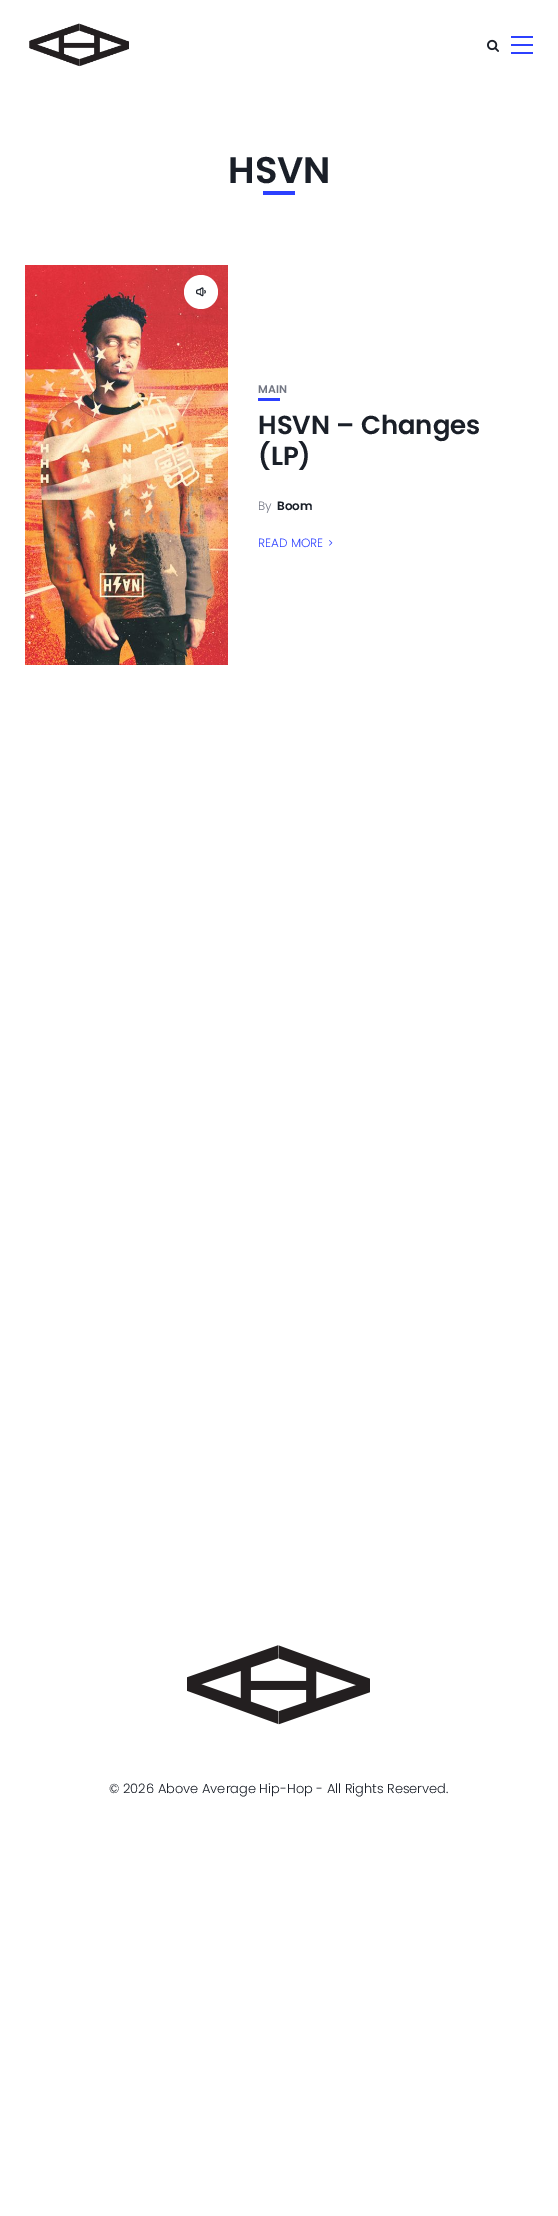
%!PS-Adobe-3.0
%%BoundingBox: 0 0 558 2216
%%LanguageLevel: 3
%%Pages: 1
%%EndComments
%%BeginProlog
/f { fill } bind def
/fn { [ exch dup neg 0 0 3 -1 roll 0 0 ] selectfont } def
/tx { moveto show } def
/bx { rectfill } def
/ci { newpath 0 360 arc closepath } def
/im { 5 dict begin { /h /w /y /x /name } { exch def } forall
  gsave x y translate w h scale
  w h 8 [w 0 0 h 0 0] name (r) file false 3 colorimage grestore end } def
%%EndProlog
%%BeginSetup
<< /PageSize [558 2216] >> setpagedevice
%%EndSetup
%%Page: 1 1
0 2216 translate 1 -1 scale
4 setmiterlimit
1 setgray
0 0 558 2216 bx
(image0.raw) 29 23 100 44 im
(image1.raw) 487 39 12 13 im
0.173 0.251 1 setrgbcolor
511 36 22 2 bx
511 44 22 2 bx
511 52 22 2 bx
/Poppins-SemiBold 37 fn
0.102 0.122 0.157 setrgbcolor
(HSVN) 228 183 tx
0.173 0.251 1 setrgbcolor
263 191 32 4 bx
(image2.raw) 25 265 203 400 im
1 setgray
201 292 17 ci f
(image3.raw) 196 287 10 10 im
/Poppins-SemiBold 11 fn
0.443 0.459 0.51 setrgbcolor
(MAIN) 258 393 tx
0.173 0.251 1 setrgbcolor
258 398 22 3 bx
/Poppins-SemiBold 26 fn
0.102 0.122 0.157 setrgbcolor
(HSVN – Changes) 258 434 tx
(\(LP\)) 258 465 tx
/Poppins-Light 12 fn
0.443 0.459 0.51 setrgbcolor
(By) 258 510 tx
/Poppins-SemiBold 12 fn
0.102 0.122 0.157 setrgbcolor
(Boom) 277 510 tx
/Poppins-Light 12 fn
0.173 0.251 1 setrgbcolor
(READ MORE) 258 547 tx
(image4.raw) 329 540 4 6 im
(image5.raw) 187 1645 183 80 im
/Poppins-Light 13 fn
0.102 0.122 0.157 setrgbcolor
(© 2026 Above Average Hip-Hop - All Rights Reserved.) 109 1793 tx
showpage
%%EOF
